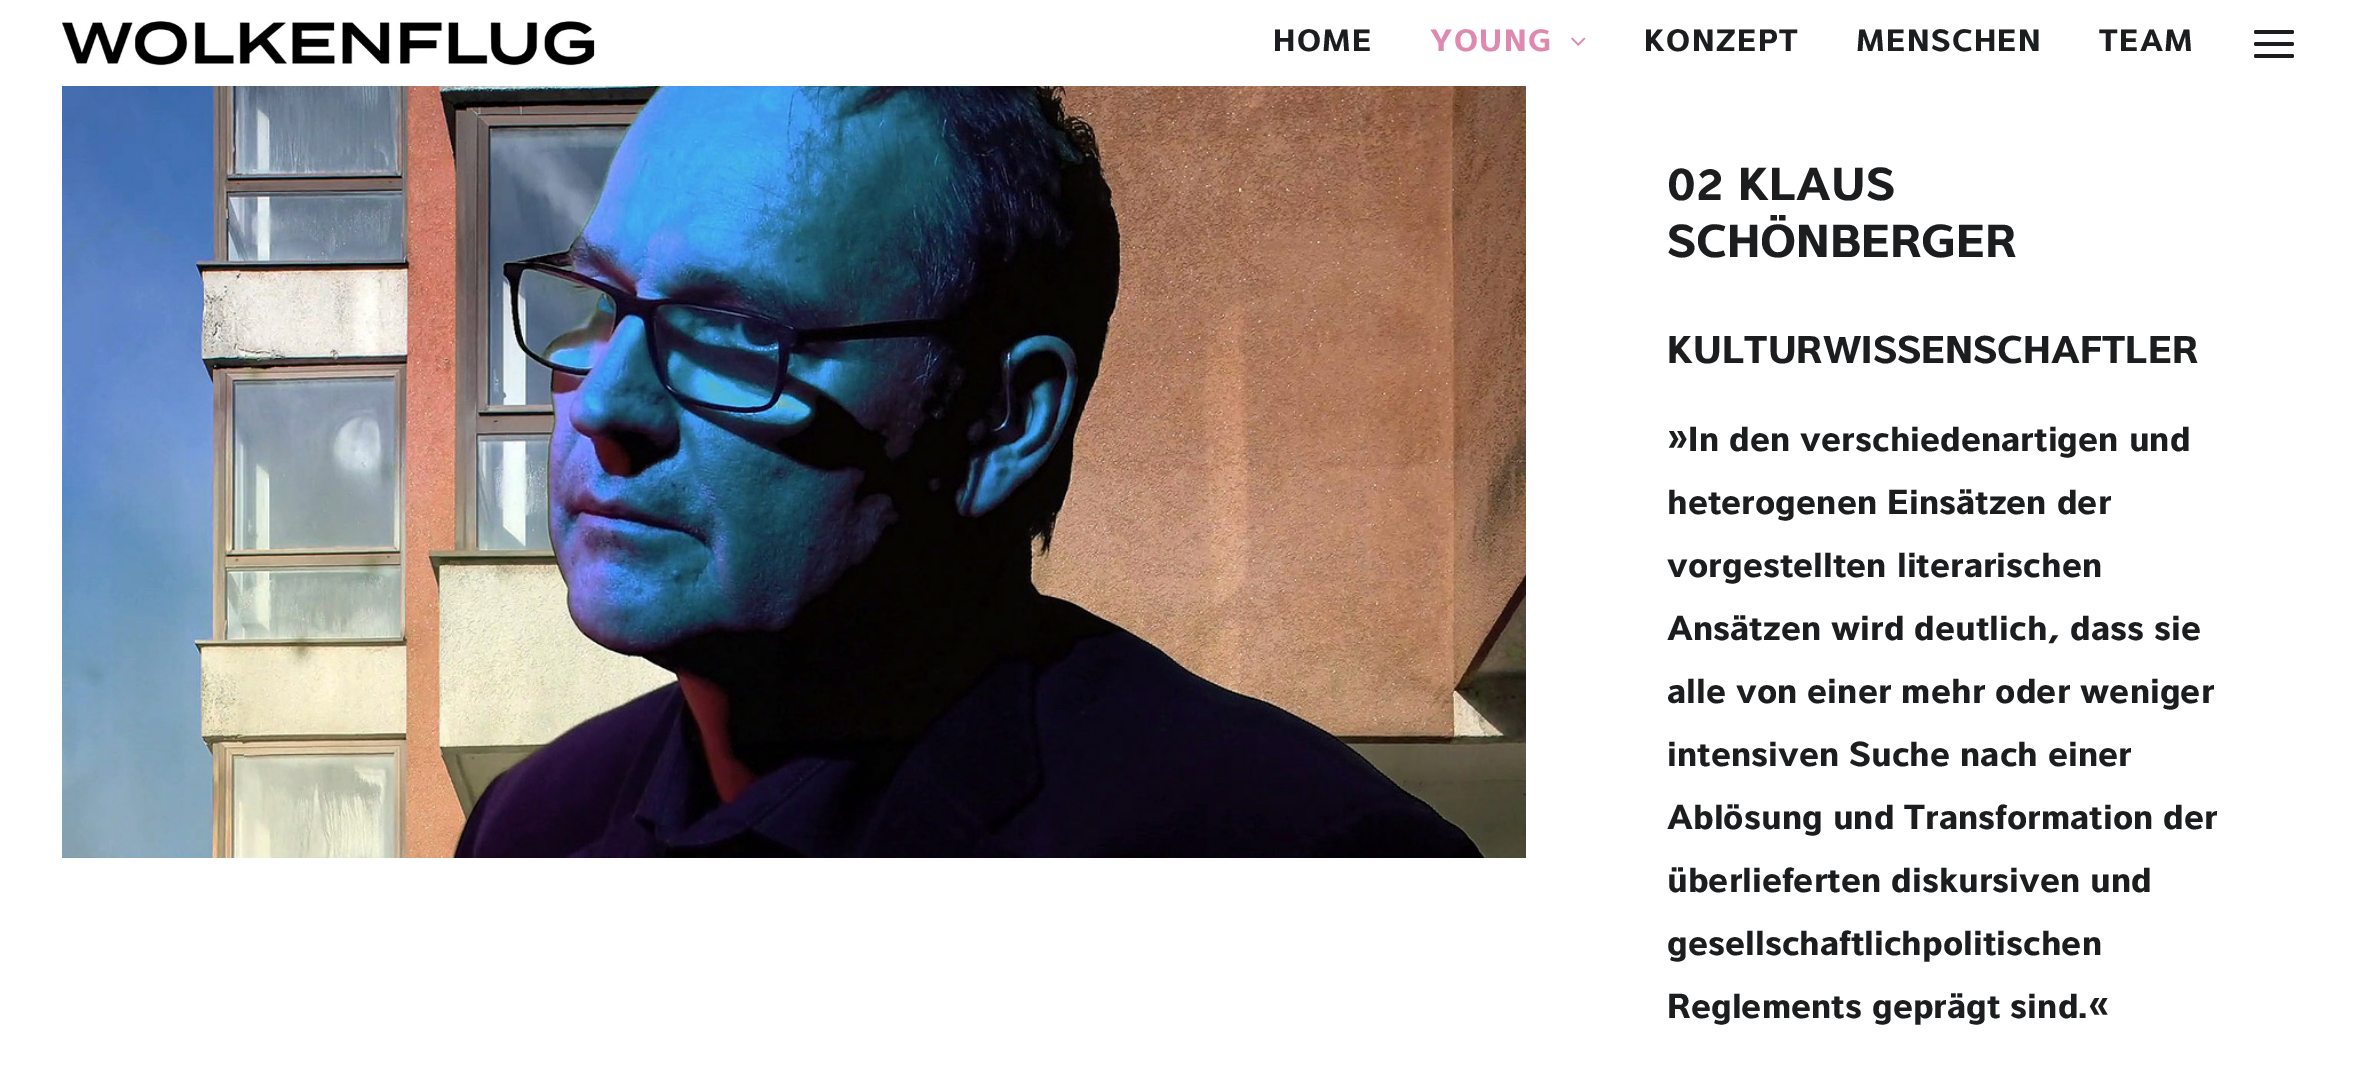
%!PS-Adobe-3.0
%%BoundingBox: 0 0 2353 1075
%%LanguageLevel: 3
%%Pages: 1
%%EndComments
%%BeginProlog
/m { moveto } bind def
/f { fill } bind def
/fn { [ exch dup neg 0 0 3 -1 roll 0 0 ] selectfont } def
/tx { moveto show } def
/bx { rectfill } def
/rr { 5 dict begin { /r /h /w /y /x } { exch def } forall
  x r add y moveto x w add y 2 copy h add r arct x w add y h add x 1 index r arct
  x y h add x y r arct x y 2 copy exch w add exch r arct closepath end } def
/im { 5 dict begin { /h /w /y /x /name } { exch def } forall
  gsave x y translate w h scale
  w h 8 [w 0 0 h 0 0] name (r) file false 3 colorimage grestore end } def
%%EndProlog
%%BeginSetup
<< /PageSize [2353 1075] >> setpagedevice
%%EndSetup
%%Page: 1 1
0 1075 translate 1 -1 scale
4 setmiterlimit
1 setgray
0 0 2353 1075 bx
(image0.raw) 62 21 533 45 im
/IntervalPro-Bold 32 fn
0.106 0.114 0.122 setrgbcolor
1273 51 m 1.5 0 (HOME) ashow
0.875 0.537 0.69 setrgbcolor
1430 51 m 1.5 0 (YOUNG) ashow
(image1.raw) 1571 37 15 9 im
0.106 0.114 0.122 setrgbcolor
1644 51 m 1.5 0 (KONZEPT) ashow
1856 51 m 1.5 0 (MENSCHEN) ashow
2099 51 m 1.5 0 (TEAM) ashow
2254 42 40 4 2 rr f
2254 30 40 4 2 rr f
2254 54 40 4 2 rr f
(image2.raw) 62 86 1464 772 im
/IntervalPro-Bold 48 fn
(02 KLAUS) 1667 200 tx
(SCHÖNBERGER) 1667 257 tx
/IntervalPro-Bold 40 fn
(KULTURWISSENSCHAFTLER) 1667 363 tx
/IntervalPro-Bold 36 fn
(»In den verschiedenartigen und) 1667 451 tx
(heterogenen Einsätzen der) 1667 514 tx
(vorgestellten literarischen) 1667 577 tx
(Ansätzen wird deutlich, dass sie) 1667 640 tx
(alle von einer mehr oder weniger) 1667 703 tx
(intensiven Suche nach einer) 1667 766 tx
(Ablösung und Transformation der) 1667 829 tx
(überlieferten diskursiven und) 1667 892 tx
(gesellschaftlichpolitischen) 1667 955 tx
(Reglements geprägt sind.«) 1667 1018 tx
showpage
%%EOF
